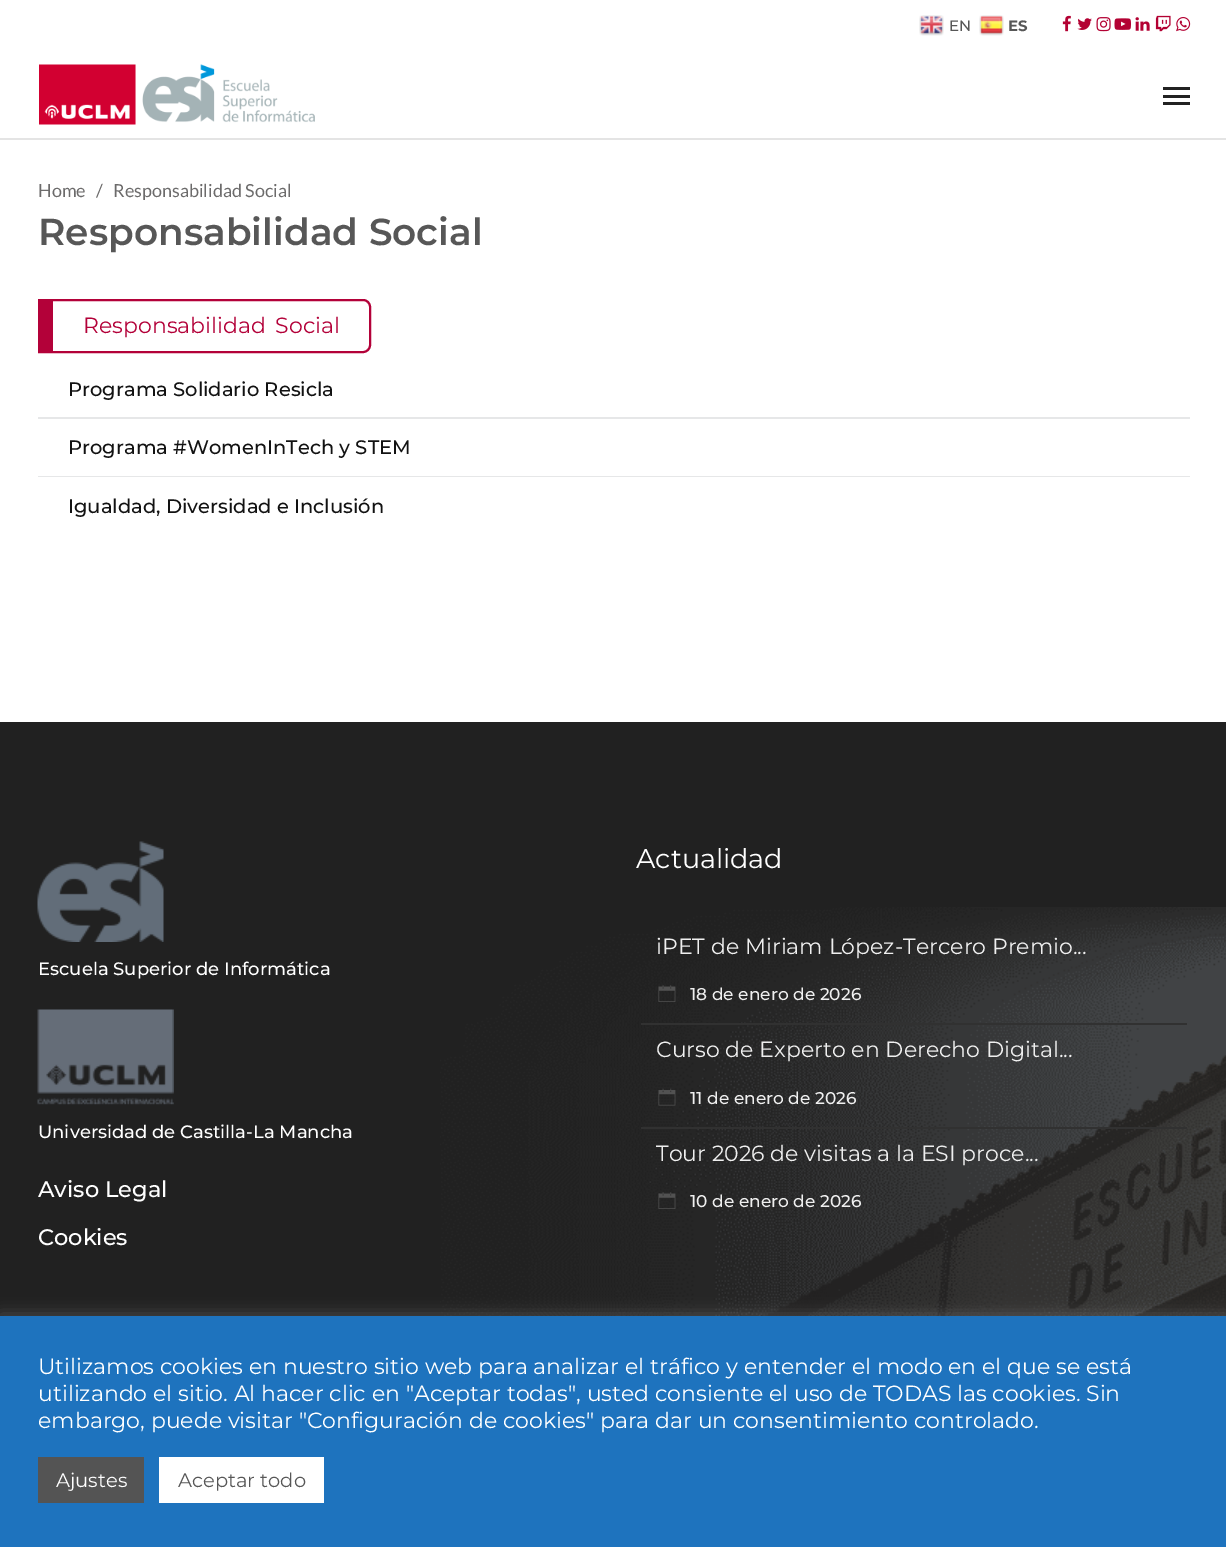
%!PS-Adobe-3.0
%%BoundingBox: 0 0 1226 1547
%%LanguageLevel: 3
%%Pages: 1
%%EndComments
%%BeginProlog
/m { moveto } bind def
/l { lineto } bind def
/c { curveto } bind def
/h { closepath } bind def
/S { stroke } bind def
/w { setlinewidth } bind def
/fn { [ exch dup neg 0 0 3 -1 roll 0 0 ] selectfont } def
/tx { moveto show } def
/bx { rectfill } def
/al { dup .setfillconstantalpha .setstrokeconstantalpha } def
/rr { 5 dict begin { /r /h /w /y /x } { exch def } forall
  x r add y moveto x w add y 2 copy h add r arct x w add y h add x 1 index r arct
  x y h add x y r arct x y 2 copy exch w add exch r arct closepath end } def
/sh { 12 dict begin { /a /b /q /h /w /y /x } { exch def } forall gsave /was 0 def
  9 -2 -9 { dup b mul 4 div /e exch def 1 sub .425 mul 2.718 exch exp 1 add a .99 .min exch div /now exch def
    1 1 now sub 1 was sub div sub al /was now def
    w h .min e 2 mul add 0 gt { x e sub y e sub w e 2 mul add h e 2 mul add
      q e add b .6 mul add w h .min 2 div e add .min 0 .max rr fill } if } for grestore end } def
/im { 5 dict begin { /h /w /y /x /name } { exch def } forall
  gsave x y translate w h scale
  w h 8 [w 0 0 h 0 0] name (r) file false 3 colorimage grestore end } def
%%EndProlog
%%BeginSetup
<< /PageSize [1226 1547] /PageUsesTransparency true >> setpagedevice
%%EndSetup
%%Page: 1 1
0 .pushpdf14devicefilter
0 1547 translate 1 -1 scale
4 setmiterlimit
1 setgray
0 0 1226 1547 bx
(image0.raw) 919 15 25 21 im
/Montserrat-Medium 15 fn
0.341 setgray
(EN) 949 31 tx
(image1.raw) 979 15 25 21 im
/Montserrat-Bold 15 fn
(ES) 1008 31 tx
(image2.raw) 1062 15 9 17 im
(image3.raw) 1077 18 15 12 im
(image4.raw) 1096 17 15 15 im
(image5.raw) 1114 18 17 12 im
(image6.raw) 1135 17 15 14 im
(image7.raw) 1155 15 16 17 im
(image8.raw) 1176 17 15 15 im
0.894 setgray
0 138 1226 2 bx
(image9.raw) 39 64 276 61 im
0.133 setgray
1163 87 27 3 bx
1163 95 27 3 bx
1163 102 27 3 bx
/Lato-Regular 18 fn
0.424 0.42 0.42 setrgbcolor
(Home) 38 197 tx
(/) 96 197 tx
(Responsabilidad Social) 113 197 tx
/Montserrat-SemiBold 37.5 fn
0.341 setgray
(Responsabilidad Social) 38 245 tx
0.702 0.004 0.224 setrgbcolor
2 w
39 300 m 363 300 l 367 300 370 303 370 307 c 370 345 l 370 349 367 352 363 352 c 39 352 l h S
40 301 13 50 bx
/Montserrat-Regular 22 fn
83 333 m 4 0 32 (Responsabilidad Social) widthshow
0.902 0.906 0.91 setrgbcolor
38 417 1152 2 bx
/Montserrat-Medium 19.5 fn
0.071 setgray
(Programa Solidario Resicla) 68 396 tx
0.902 0.906 0.91 setrgbcolor
38 476 1152 1 bx
0.071 setgray
(Programa #WomenInTech y STEM) 68 454 tx
(Igualdad, Diversidad e Inclusión) 68 513 tx
0.129 setgray
0 722 1226 594 bx
(image10.raw) 440 907 786 409 im
(image11.raw) 37 841 127 101 im
/Montserrat-Medium 18 fn
1 setgray
(Escuela Superior de Informática) 38 975 tx
(image12.raw) 37 1009 137 96 im
(Universidad de Castilla-La Mancha) 38 1138 tx
/Montserrat-Medium 22.5 fn
(Aviso Legal) 38 1197 tx
(Cookies) 38 1245 tx
/Montserrat-Regular 27 fn
(Actualidad) 636 868 tx
0.192 setgray
641 1023 546 2 bx
/Montserrat-Regular 22 fn
0.937 setgray
(iPET de Miriam López-Tercero Premio...) 656 954 tx
(image13.raw) 658 985 18 17 im
/Montserrat-Medium 17 fn
(18 de enero de 2026) 690 1000 tx
0.192 setgray
641 1127 546 2 bx
/Montserrat-Regular 22 fn
0.937 setgray
(Curso de Experto en Derecho Digital...) 656 1057 tx
(image14.raw) 658 1088 18 18 im
/Montserrat-Medium 17 fn
(11 de enero de 2026) 690 1104 tx
/Montserrat-Regular 22 fn
(Tour 2026 de visitas a la ESI proce...) 656 1161 tx
(image15.raw) 658 1192 18 17 im
/Montserrat-Medium 17 fn
(10 de enero de 2026) 690 1207 tx
0.675 0.671 0.671 setrgbcolor
0 1314 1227 233 0 7.5 0.3 sh
0.118 0.451 0.745 setrgbcolor
0 1316 1226 231 bx
/Montserrat-Regular 22 fn
1 setgray
(Utilizamos cookies en nuestro sitio web para analizar el tráfico y entender el modo en el que se está) 38 1374 tx
(utilizando el sitio. Al hacer clic en "Aceptar todas", usted consiente el uso de TODAS las cookies. Sin) 38 1401 tx
(embargo, puede visitar "Configuración de cookies" para dar un consentimiento controlado.) 38 1428 tx
0.329 setgray
38 1457 106 46 bx
/Montserrat-Regular 19.5 fn
1 setgray
(Ajustes) 56 1487 tx
159 1457 165 46 bx
0.341 setgray
(Aceptar todo) 178 1487 tx
.poppdf14devicefilter showpage
%%EOF
